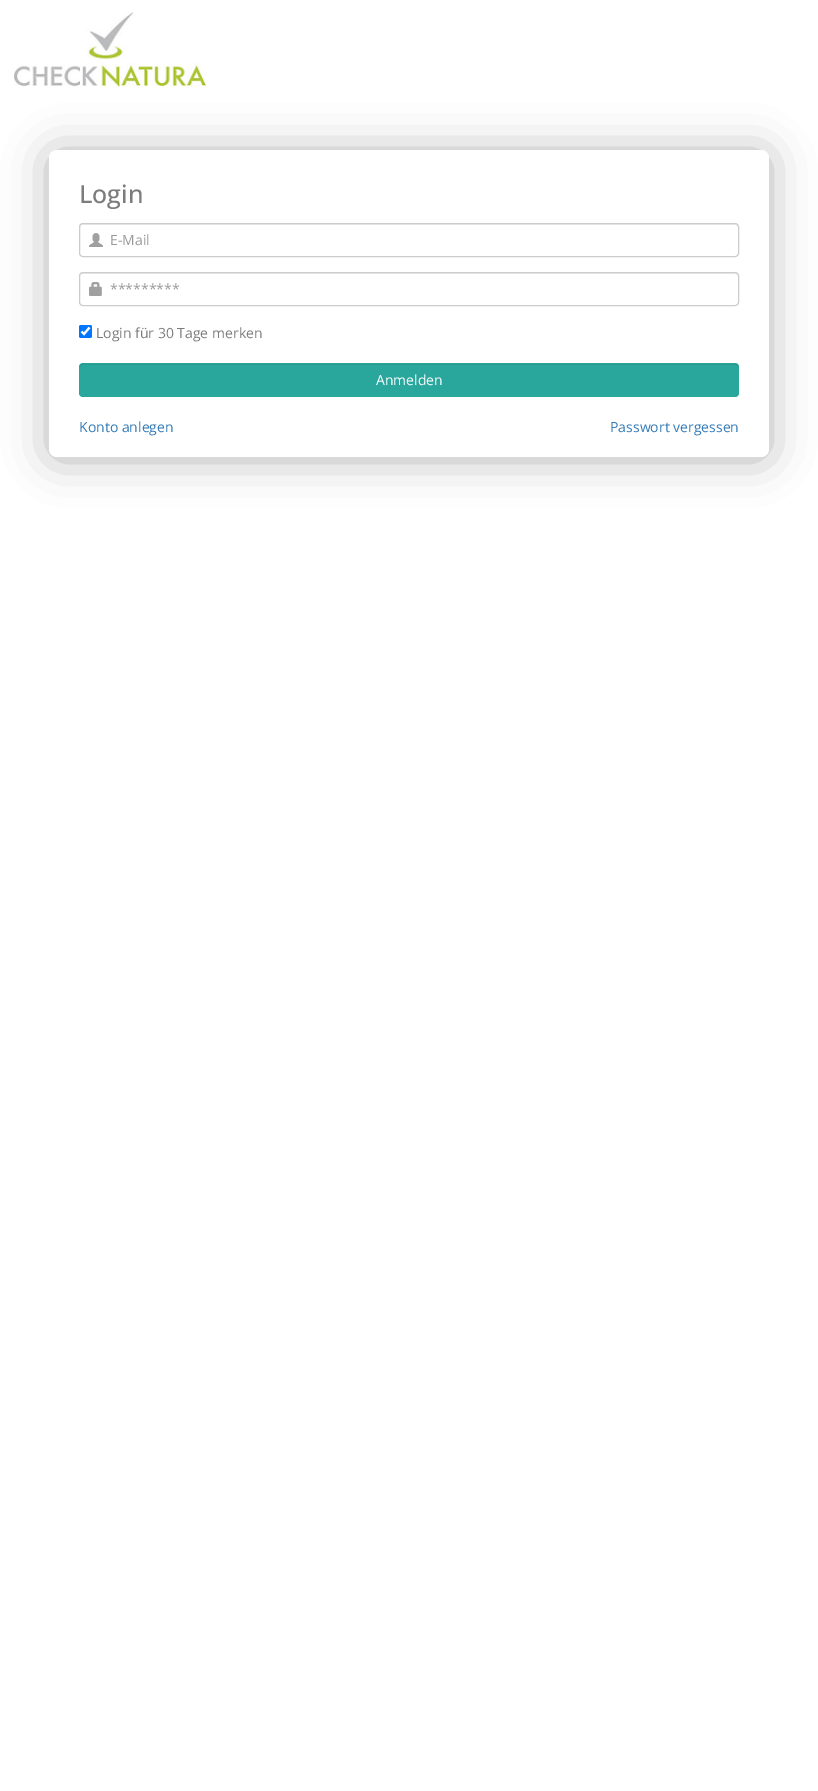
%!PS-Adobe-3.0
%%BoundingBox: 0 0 818 1791
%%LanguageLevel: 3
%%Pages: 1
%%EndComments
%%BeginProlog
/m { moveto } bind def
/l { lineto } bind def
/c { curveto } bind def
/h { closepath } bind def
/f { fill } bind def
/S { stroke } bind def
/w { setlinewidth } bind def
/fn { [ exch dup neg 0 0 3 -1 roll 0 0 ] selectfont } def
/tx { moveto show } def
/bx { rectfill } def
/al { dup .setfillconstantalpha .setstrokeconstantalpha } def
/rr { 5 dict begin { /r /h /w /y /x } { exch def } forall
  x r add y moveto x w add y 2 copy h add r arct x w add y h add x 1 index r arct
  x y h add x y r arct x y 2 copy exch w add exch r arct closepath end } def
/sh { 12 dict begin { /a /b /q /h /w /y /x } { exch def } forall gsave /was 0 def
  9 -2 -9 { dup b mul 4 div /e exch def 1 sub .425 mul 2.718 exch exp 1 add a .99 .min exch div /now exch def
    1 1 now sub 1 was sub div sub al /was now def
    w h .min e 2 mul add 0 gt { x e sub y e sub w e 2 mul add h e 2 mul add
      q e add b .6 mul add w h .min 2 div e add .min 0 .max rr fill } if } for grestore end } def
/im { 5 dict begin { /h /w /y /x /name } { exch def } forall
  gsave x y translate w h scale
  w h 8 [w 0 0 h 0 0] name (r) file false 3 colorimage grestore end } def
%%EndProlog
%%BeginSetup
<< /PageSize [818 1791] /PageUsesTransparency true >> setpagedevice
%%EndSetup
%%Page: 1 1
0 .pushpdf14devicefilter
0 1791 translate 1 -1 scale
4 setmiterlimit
1 setgray
0 0 818 1791 bx
(image0.raw) 14 12 193 75 im
0 setgray
49 152 720 307 8 22 0.3 sh
1 setgray
49 150 720 307 8 rr f
/OpenSans-Medium 25 fn
0.486 setgray
(Login) 79 203 tx
0.925 setgray
83 225 m 735 225 l 737 225 738 226 738 228 c 738 227 l 738 225 737 224 735 224 c 83 224 l 81 224 80 225 80 227 c 80 228 l 80 226 81 225 83 225 c h f
0.8 setgray
79.5 223.5 659 33 3.5 rr S
(image1.raw) 89 233 14 14 im
/OpenSans-Regular 14 fn
0.6 setgray
(E-Mail) 110 245 tx
0.925 setgray
83 274 m 735 274 l 737 274 738 275 738 277 c 738 276 l 738 274 737 273 735 273 c 83 273 l 81 273 80 274 80 276 c 80 277 l 80 275 81 274 83 274 c h f
0.8 setgray
79.5 272.5 659 33 3.5 rr S
(image2.raw) 89 282 13 14 im
0.6 setgray
(*********) 110 294 tx
0 0.459 1 setrgbcolor
79 325 13 13 2 rr f
1 setgray
2.1 w
81.5 331.5 m 84 334 l 89.5 327.5 l S
0.486 setgray
(Login für 30 Tage merken) 96 338 tx
0.161 0.655 0.612 setrgbcolor
79 363 660 34 4 rr f
0.149 0.604 0.565 setrgbcolor
83 365 m 735 365 l 737 365 738 366 738 368 c 738 367 l 738 365 737 364 735 364 c 83 364 l 81 364 80 365 80 367 c 80 368 l 80 366 81 365 83 365 c h f
1 setgray
(Anmelden) 376 385 tx
0.2 0.478 0.718 setrgbcolor
(Konto anlegen) 79 432 tx
(Passwort vergessen) 610 432 tx
.poppdf14devicefilter showpage
%%EOF
